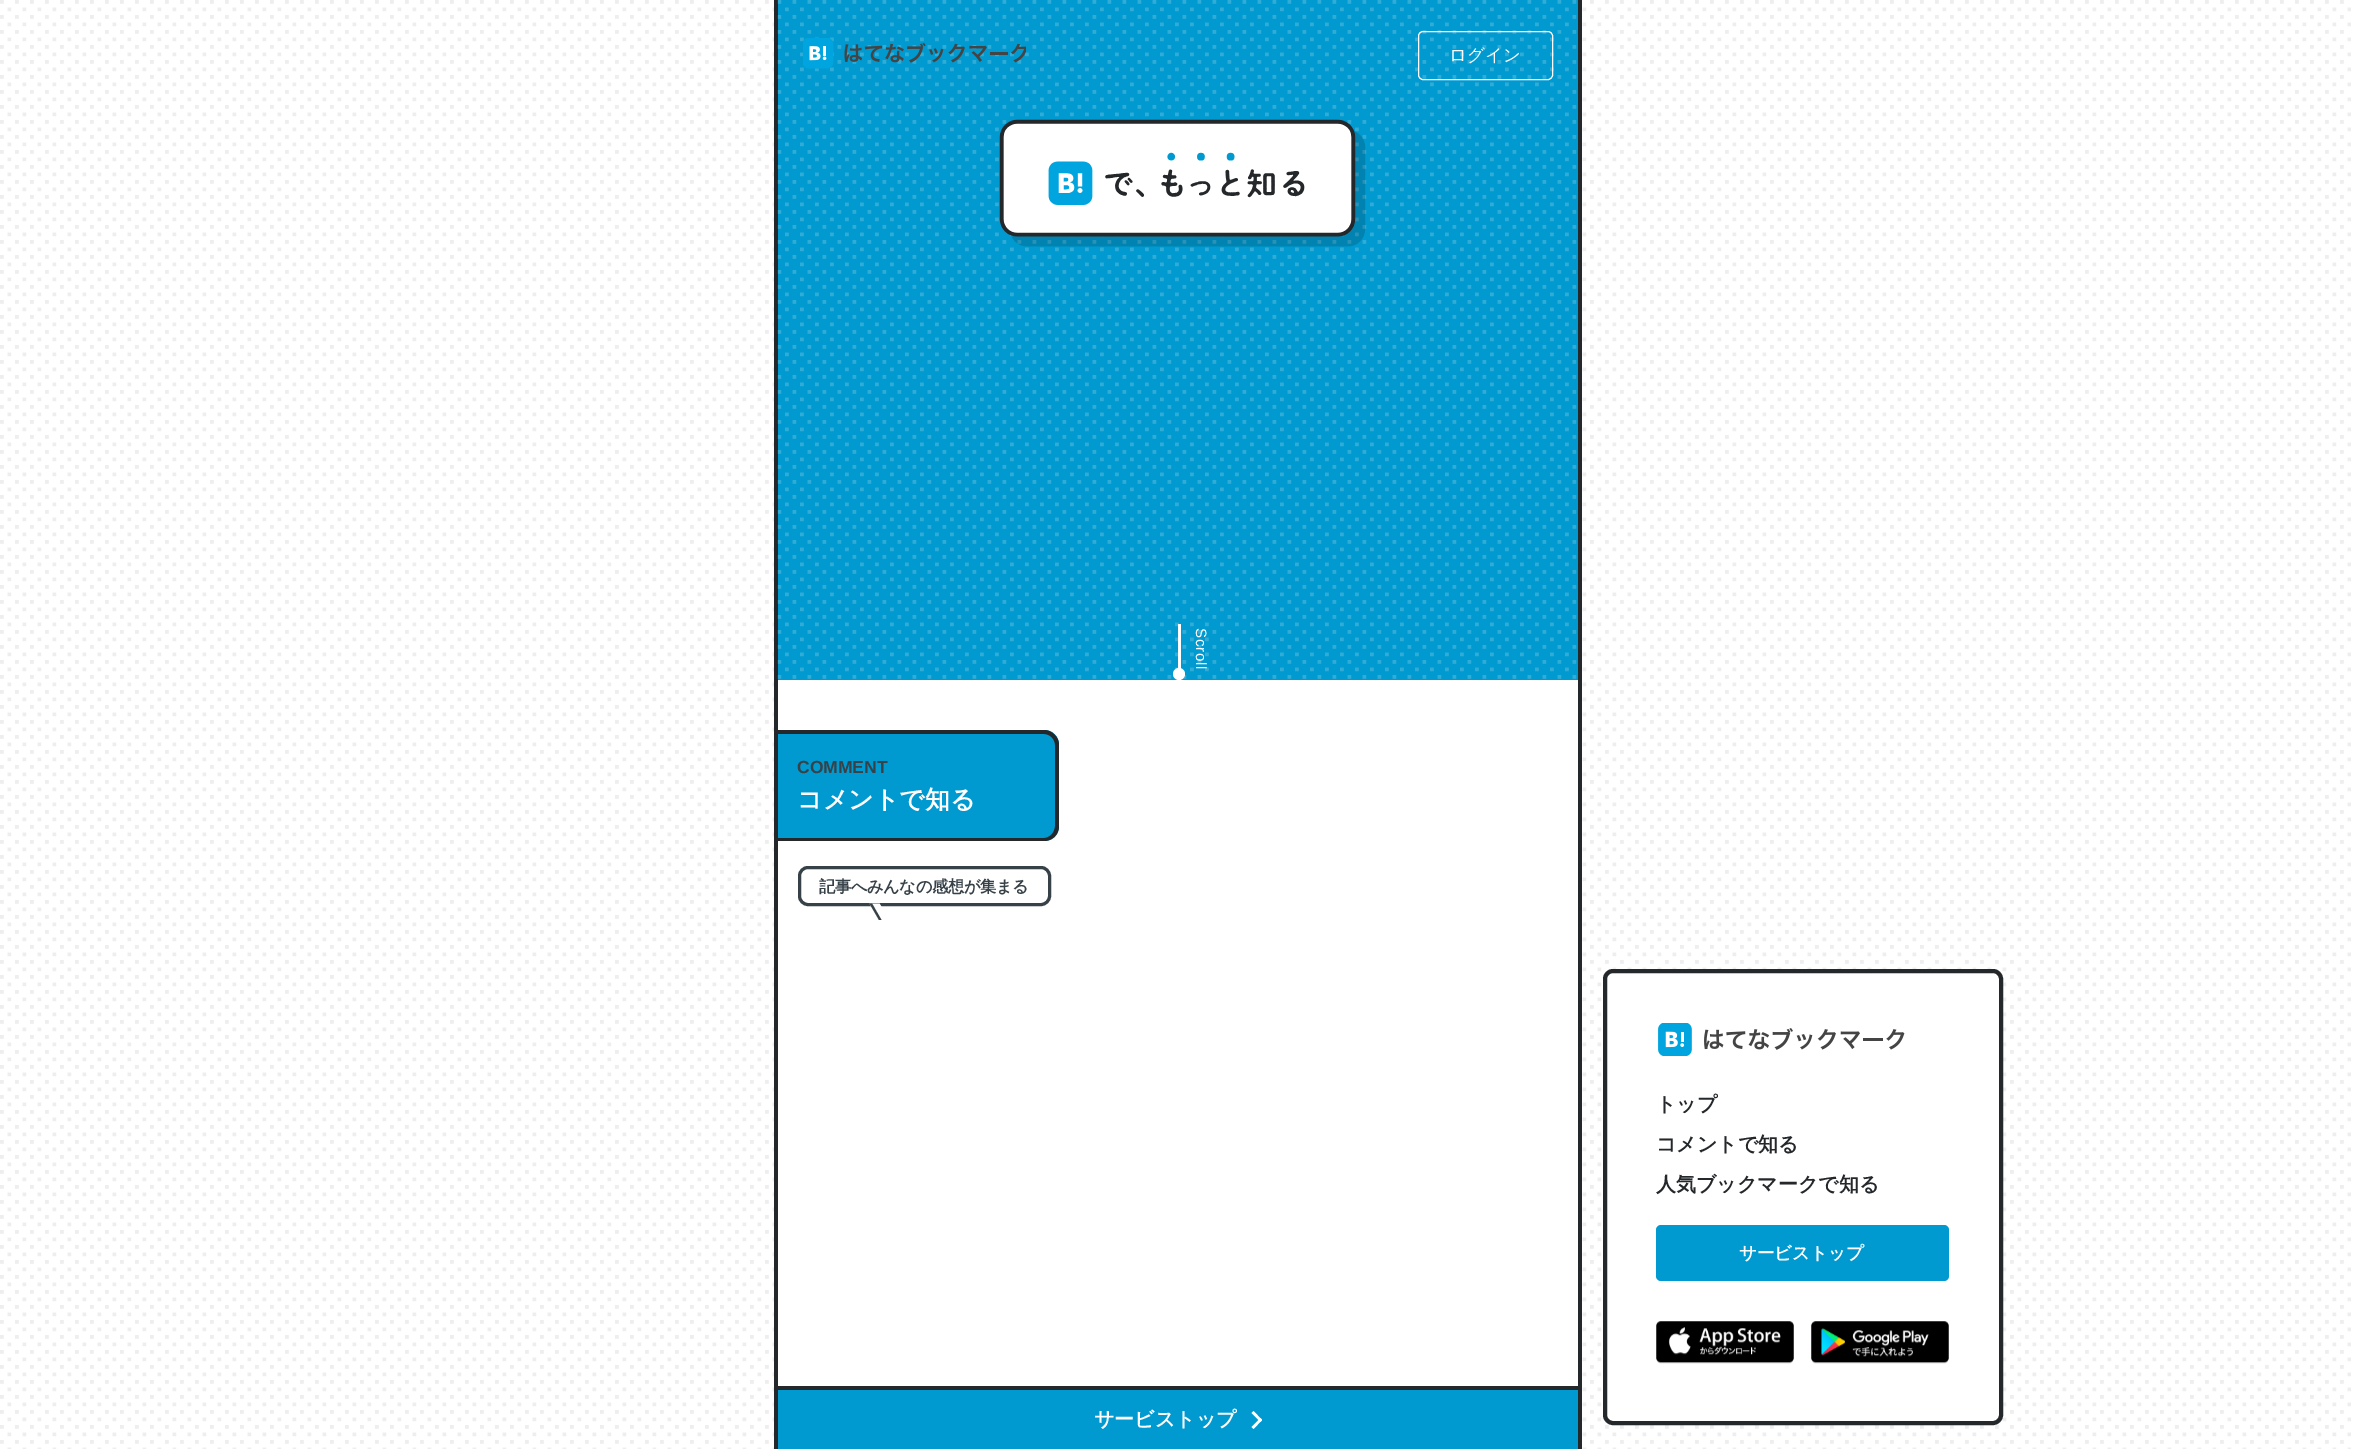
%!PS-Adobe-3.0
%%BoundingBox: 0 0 2353 1449
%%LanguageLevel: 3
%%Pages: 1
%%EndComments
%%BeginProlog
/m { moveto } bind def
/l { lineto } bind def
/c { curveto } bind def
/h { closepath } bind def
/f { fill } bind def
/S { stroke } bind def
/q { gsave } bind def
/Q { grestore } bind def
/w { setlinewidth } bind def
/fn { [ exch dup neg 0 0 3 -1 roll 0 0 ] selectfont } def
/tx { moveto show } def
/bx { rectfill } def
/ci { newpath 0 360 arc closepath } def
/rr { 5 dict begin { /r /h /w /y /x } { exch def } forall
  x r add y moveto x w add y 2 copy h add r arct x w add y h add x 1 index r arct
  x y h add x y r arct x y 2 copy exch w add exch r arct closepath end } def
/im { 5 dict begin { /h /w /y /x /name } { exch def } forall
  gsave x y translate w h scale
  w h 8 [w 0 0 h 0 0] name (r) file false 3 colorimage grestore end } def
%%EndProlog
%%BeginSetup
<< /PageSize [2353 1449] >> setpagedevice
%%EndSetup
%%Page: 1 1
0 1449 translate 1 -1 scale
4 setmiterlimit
1 setgray
0 0 2353 1449 bx
(image0.raw) 0 0 2351 1449 im
780 682 798 702 bx
0.145 0.157 0.169 setrgbcolor
1578 0 4 1449 bx
774 0 4 1449 bx
0 0.604 0.816 setrgbcolor
778 0 800 680 bx
(image1.raw) 777 0 800 679 im
(image2.raw) 803 38 223 31 im
1 setgray
1418.5 31.5 134 48 4.5 rr S
/WenQuanYiZenHei-Medium 17.5 fn
(ログイン) 1449 61 tx
(image3.raw) 999 119 367 128 im
1179 674 6 ci f
1178 624 3 56 bx
/LiberationSans-Regular 15 fn
q 1196 628 translate 90 rotate 0 0 m 0.75 0 (Scroll) ashow Q
0 0.604 0.816 setrgbcolor
778 730 m 1044 730 l 1052.5 730 1059 736.5 1059 745 c 1059 826 l 1059 834.5 1052.5 841 1044 841 c 778 841 l h f
0.145 0.157 0.169 setrgbcolor
778 730 m 1044 730 l 1052 730 1059 737 1059 745 c 1059 826 l 1059 835 1052 841 1044 841 c 778 841 l h 778 734 m 1044 734 l 1050 734 1055 739 1055 745 c 1055 826 l 1055 832 1050 838 1044 838 c 778 838 l h eofill
/LiberationSans-Bold 17.5 fn
0.216 0.255 0.282 setrgbcolor
(COMMENT) 797 773 tx
/WenQuanYiZenHei-Bold 25 fn
1 setgray
(コメントで知る) 797 808 tx
0.216 0.255 0.282 setrgbcolor
3 w
799.5 867.5 250 37 8.5 rr S
/WenQuanYiZenHei-Bold 16.25 fn
819 892 m -0.4 0 (記事へみんなの感想が集まる) ashow
1 setgray
869.5 903.5 m 879.5 903.5 l 889 920 l 879 920 l h f
0.216 0.255 0.282 setrgbcolor
869.5 903.5 m 872 903.5 l 881.5 920 l 879 920 l h f
0 0.604 0.816 setrgbcolor
778 1390 800 59 bx
0.145 0.157 0.169 setrgbcolor
778 1386 800 4 bx
/WenQuanYiZenHei-Bold 20 fn
1 setgray
(サービストップ) 1094 1426 tx
1251.5 1413 m 1253.5 1411 l 1262 1420 l 1260.5 1422 l h f
1251.5 1427 m 1260.5 1418 l 1262 1420 l 1253.5 1429 l h f
1605 971 396 452 8 rr q f Q
0.145 0.157 0.169 setrgbcolor
4 w
S
(image4.raw) 1658 1023 247 33 im
(トップ) 1656 1111 tx
(コメントで知る) 1656 1151 tx
(人気ブックマークで知る) 1656 1191 tx
0 0.604 0.816 setrgbcolor
1656 1225 293 56 5 rr f
/WenQuanYiZenHei-Bold 17.5 fn
1 setgray
(サービストップ) 1739 1259 tx
(image5.raw) 1656 1321 138 43 im
(image6.raw) 1811 1321 138 43 im
showpage
%%EOF
